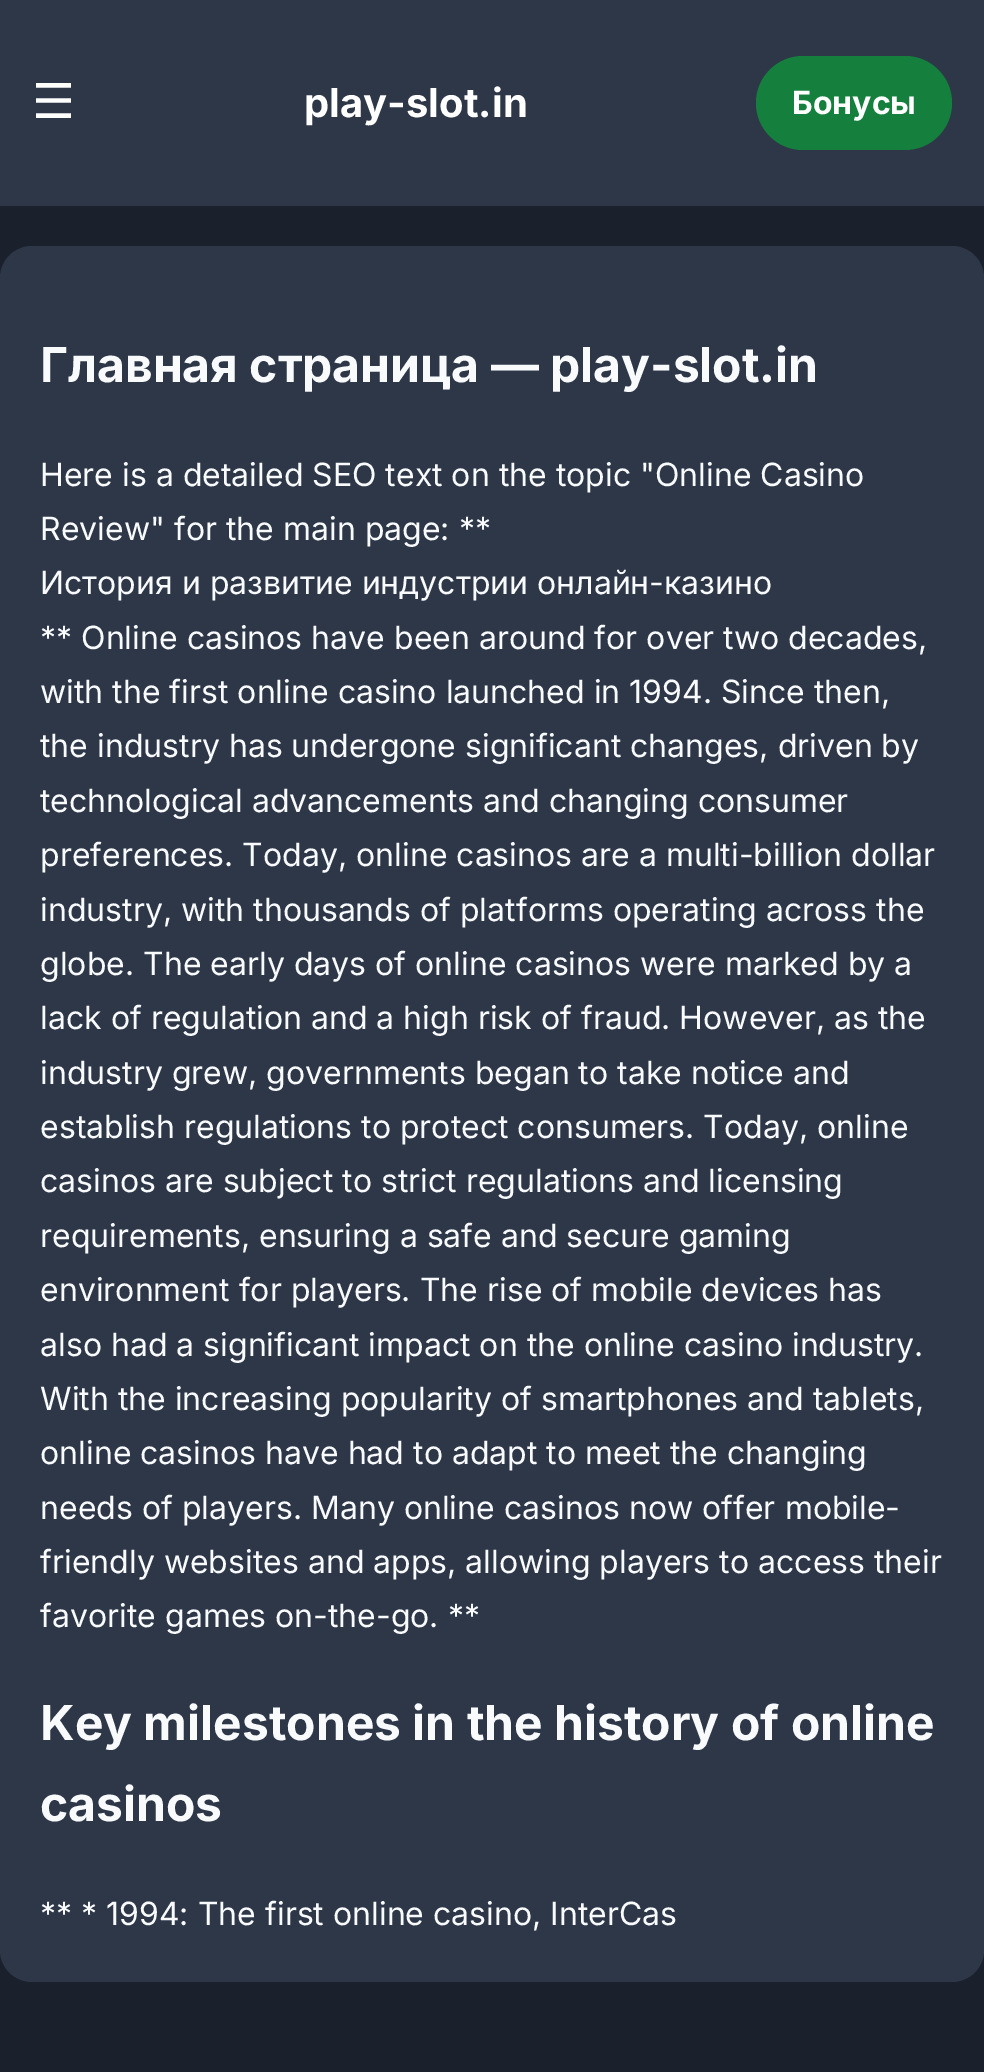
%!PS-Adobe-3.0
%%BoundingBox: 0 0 984 2072
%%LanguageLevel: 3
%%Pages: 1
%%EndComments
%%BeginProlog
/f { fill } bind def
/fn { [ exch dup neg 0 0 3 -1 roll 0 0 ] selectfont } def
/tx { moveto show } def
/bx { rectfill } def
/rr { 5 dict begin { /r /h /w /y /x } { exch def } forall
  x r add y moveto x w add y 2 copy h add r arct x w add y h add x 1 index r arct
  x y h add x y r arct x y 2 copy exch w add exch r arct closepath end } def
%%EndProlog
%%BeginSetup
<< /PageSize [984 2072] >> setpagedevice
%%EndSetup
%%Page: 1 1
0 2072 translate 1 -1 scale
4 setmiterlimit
0.102 0.125 0.173 setrgbcolor
0 0 984 2072 bx
0.176 0.216 0.282 setrgbcolor
0 0 984 206 bx
/DejaVuSans-Regular 48 fn
1 setgray
(☰) 32 118 tx
/Inter-Bold 40 fn
(play-slot.in) 304 117 tx
0.082 0.502 0.239 setrgbcolor
756 56 196 94 47 rr f
/Inter-Bold 32 fn
1 setgray
(Бонусы) 792 114 tx
0.176 0.216 0.282 setrgbcolor
0 246 984 1736 32 rr f
/Inter-Bold 48 fn
0.973 0.98 0.988 setrgbcolor
(Главная страница — play-slot.in) 40 382 tx
/Inter-Regular 32 fn
(Here is a detailed SEO text on the topic "Online Casino) 40 486 tx
(Review" for the main page: **) 40 540 tx
(История и развитие индустрии онлайн-казино) 40 594 tx
(** Online casinos have been around for over two decades,) 40 649 tx
(with the first online casino launched in 1994. Since then,) 40 703 tx
(the industry has undergone significant changes, driven by) 40 757 tx
(technological advancements and changing consumer) 40 812 tx
(preferences. Today, online casinos are a multi-billion dollar) 40 866 tx
(industry, with thousands of platforms operating across the) 40 921 tx
(globe. The early days of online casinos were marked by a) 40 975 tx
(lack of regulation and a high risk of fraud. However, as the) 40 1029 tx
(industry grew, governments began to take notice and) 40 1084 tx
(establish regulations to protect consumers. Today, online) 40 1138 tx
(casinos are subject to strict regulations and licensing) 40 1192 tx
(requirements, ensuring a safe and secure gaming) 40 1247 tx
(environment for players. The rise of mobile devices has) 40 1301 tx
(also had a significant impact on the online casino industry.) 40 1356 tx
(With the increasing popularity of smartphones and tablets,) 40 1410 tx
(online casinos have had to adapt to meet the changing) 40 1464 tx
(needs of players. Many online casinos now offer mobile-) 40 1519 tx
(friendly websites and apps, allowing players to access their) 40 1573 tx
(favorite games on-the-go. **) 40 1627 tx
/Inter-Bold 48 fn
(Key milestones in the history of online) 40 1740 tx
(casinos) 40 1821 tx
/Inter-Regular 32 fn
(** * 1994: The first online casino, InterCas) 40 1925 tx
showpage
%%EOF
